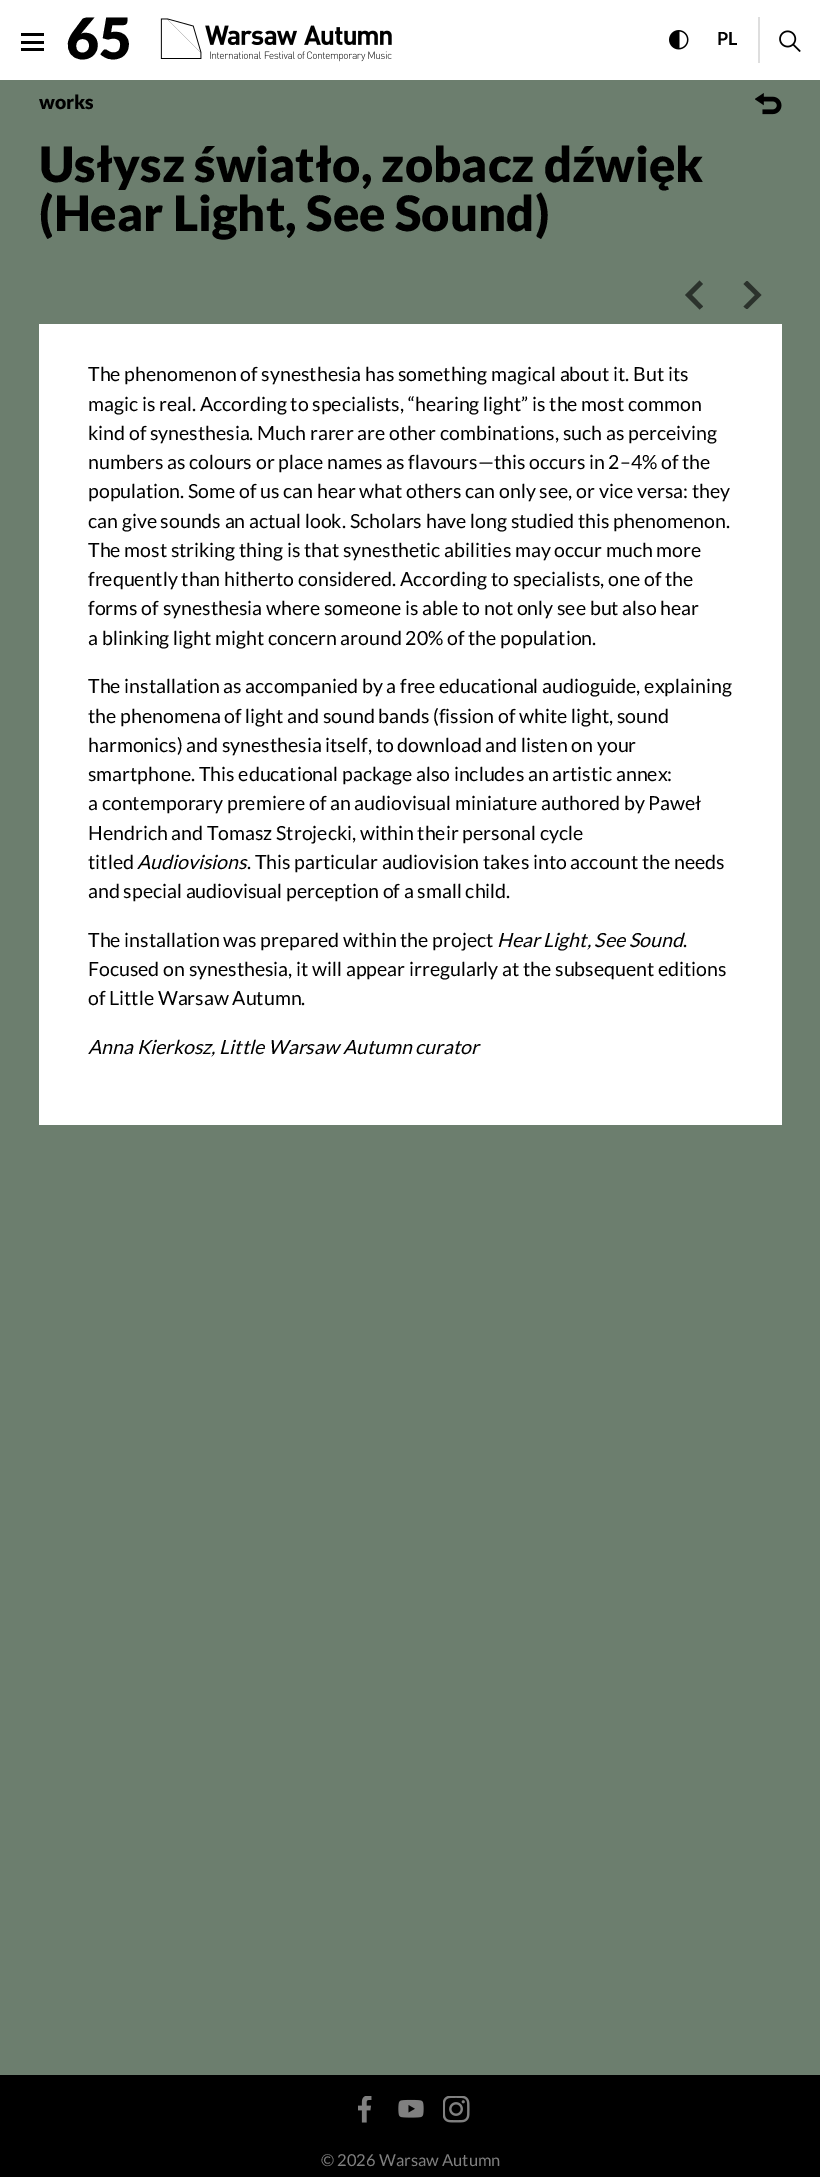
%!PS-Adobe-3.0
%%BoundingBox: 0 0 820 2177
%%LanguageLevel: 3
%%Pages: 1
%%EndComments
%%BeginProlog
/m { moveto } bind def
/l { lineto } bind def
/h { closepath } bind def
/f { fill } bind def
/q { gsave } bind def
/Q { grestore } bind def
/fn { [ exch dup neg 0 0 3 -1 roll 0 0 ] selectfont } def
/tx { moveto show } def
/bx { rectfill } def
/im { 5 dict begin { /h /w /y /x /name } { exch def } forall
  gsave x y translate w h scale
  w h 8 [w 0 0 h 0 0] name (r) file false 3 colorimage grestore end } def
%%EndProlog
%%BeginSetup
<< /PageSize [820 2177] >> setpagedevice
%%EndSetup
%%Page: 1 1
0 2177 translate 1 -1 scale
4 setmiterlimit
0.424 0.494 0.431 setrgbcolor
0 0 820 2177 bx
1 setgray
0 0 820 80 bx
0 setgray
21 33 23 3 bx
21 41 23 3 bx
21 48 23 3 bx
/Lato-Black 57 fn
(65) 66 59 tx
(image0.raw) 160 18 232 44 im
(image1.raw) 669 30 20 20 im
/Lato-Bold 18 fn
(PL) 717 45 tx
0.871 setgray
758 17 2 46 bx
(image2.raw) 779 30 22 22 im
/Lato-Black 19.5 fn
0 setgray
(works) 39 109 tx
(image3.raw) 755 93 27 22 im
/Lato-Black 48.75 fn
(Usłysz światło, zobacz dźwięk) 39 182 tx
(\(Hear Light, See Sound\)) 39 231 tx
0.169 0.196 0.173 setrgbcolor
699.5 309.5 m 703 306.5 l 692 295 l 703 284 l 699.5 280.5 l 685 295 l h f
q
738 281 29 28 rectclip
747 280.5 m 743.5 284 l 755 295 l 743.5 306.5 l 747 309.5 l 761.5 295 l h f
Q
1 setgray
39 324 743 801 bx
/Lato-Regular 19.5 fn
0 setgray
(The phenomenon of synesthesia has something magical about it. But its) 88 381 tx
(magic is real. According to specialists, “hearing light” is the most common) 88 411 tx
(kind of synesthesia. Much rarer are other combinations, such as perceiving) 88 440 tx
(numbers as colours or place names as flavours—this occurs in 2–4% of the) 88 469 tx
(population. Some of us can hear what others can only see, or vice versa: they) 88 498 tx
(can give sounds an actual look. Scholars have long studied this phenomenon.) 88 528 tx
(The most striking thing is that synesthetic abilities may occur much more) 88 557 tx
(frequently than hitherto considered. According to specialists, one of the) 88 586 tx
(forms of synesthesia where someone is able to not only see but also hear) 88 615 tx
(a blinking light might concern around 20% of the population.) 88 645 tx
(The installation as accompanied by a free educational audioguide, explaining) 88 693 tx
(the phenomena of light and sound bands \(fission of white light, sound) 88 723 tx
(harmonics\) and synesthesia itself, to download and listen on your) 88 752 tx
(smartphone. This educational package also includes an artistic annex:) 88 781 tx
(a contemporary premiere of an audiovisual miniature authored by Paweł) 88 810 tx
(Hendrich and Tomasz Strojecki, within their personal cycle) 88 840 tx
(titled) 88 869 tx
/Lato-Italic 19.5 fn
(Audiovisions) 137 869 tx
/Lato-Regular 19.5 fn
(. This particular audiovision takes into account the needs) 247 869 tx
(and special audiovisual perception of a small child.) 88 898 tx
(The installation was prepared within the project) 88 947 tx
/Lato-Italic 19.5 fn
(Hear Light, See Sound) 497 947 tx
/Lato-Regular 19.5 fn
(.) 683 947 tx
(Focused on synesthesia, it will appear irregularly at the subsequent editions) 88 976 tx
(of Little Warsaw Autumn.) 88 1005 tx
/Lato-Italic 19.5 fn
(Anna Kierkosz, Little Warsaw Autumn curator) 88 1054 tx
0 2075 820 102 bx
(image4.raw) 358 2096 14 27 im
(image5.raw) 398 2099 26 19 im
(image6.raw) 443 2096 27 27 im
/Lato-Regular 16.5 fn
0.502 setgray
(© 2026 Warsaw Autumn) 321 2166 tx
showpage
%%EOF
